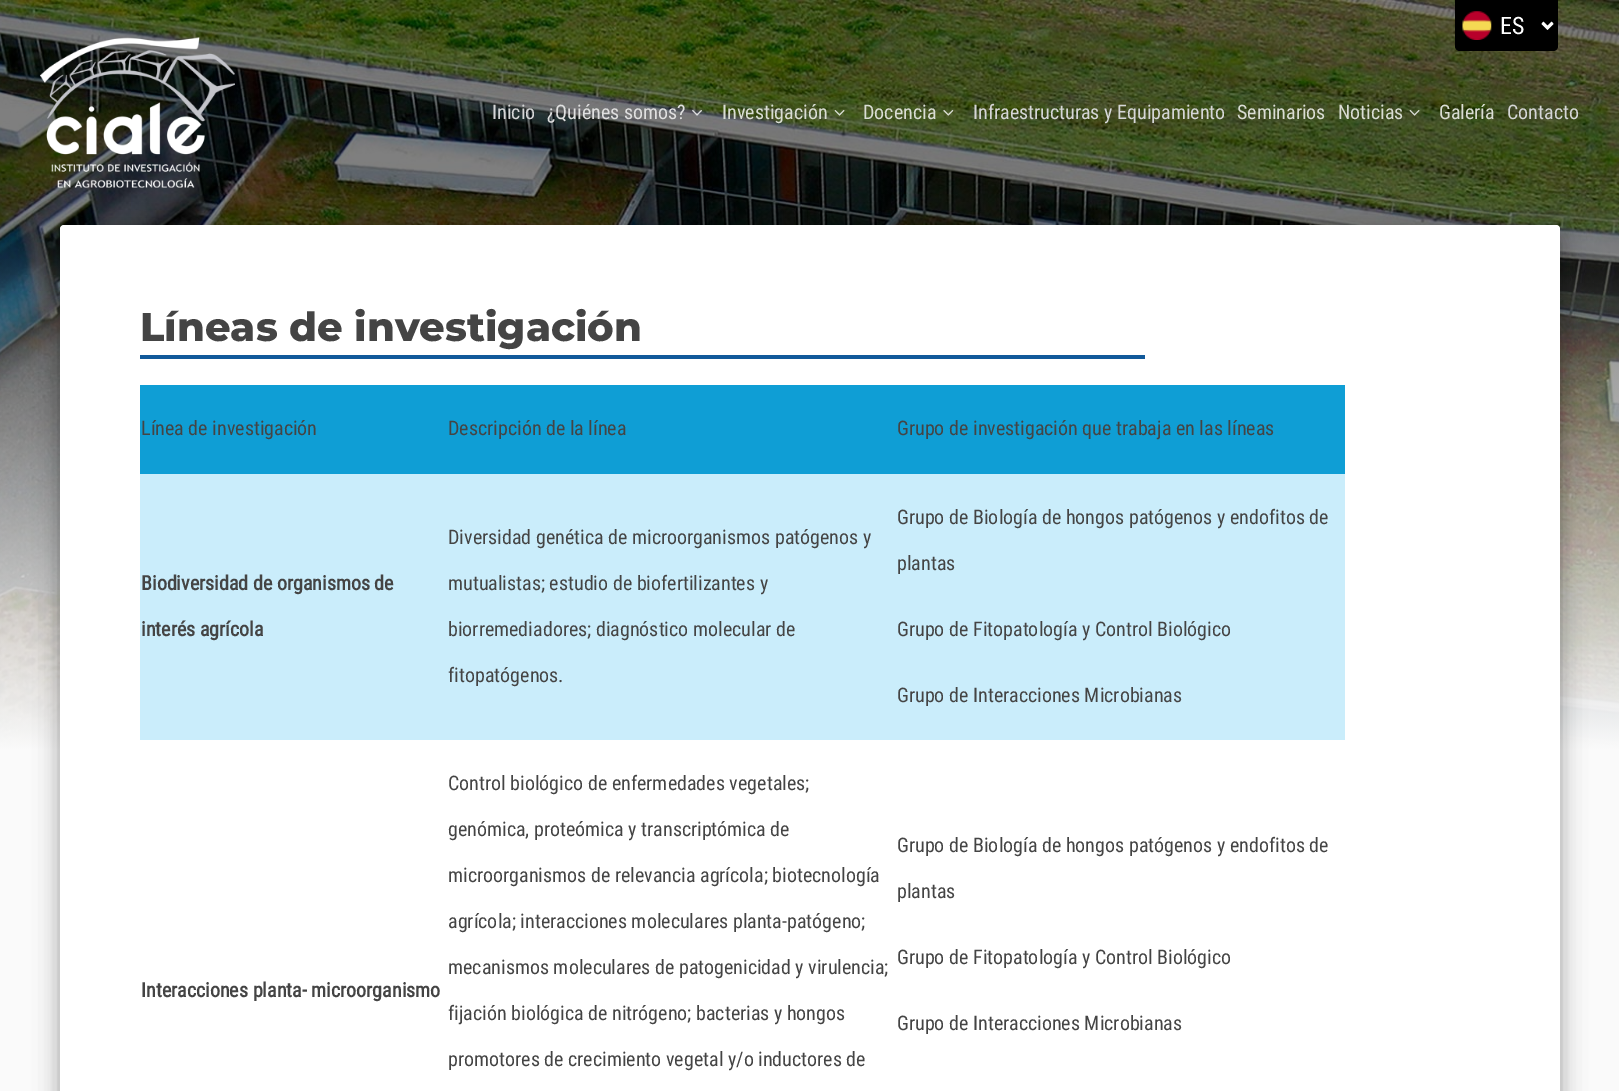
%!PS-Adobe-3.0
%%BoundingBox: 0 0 1619 1091
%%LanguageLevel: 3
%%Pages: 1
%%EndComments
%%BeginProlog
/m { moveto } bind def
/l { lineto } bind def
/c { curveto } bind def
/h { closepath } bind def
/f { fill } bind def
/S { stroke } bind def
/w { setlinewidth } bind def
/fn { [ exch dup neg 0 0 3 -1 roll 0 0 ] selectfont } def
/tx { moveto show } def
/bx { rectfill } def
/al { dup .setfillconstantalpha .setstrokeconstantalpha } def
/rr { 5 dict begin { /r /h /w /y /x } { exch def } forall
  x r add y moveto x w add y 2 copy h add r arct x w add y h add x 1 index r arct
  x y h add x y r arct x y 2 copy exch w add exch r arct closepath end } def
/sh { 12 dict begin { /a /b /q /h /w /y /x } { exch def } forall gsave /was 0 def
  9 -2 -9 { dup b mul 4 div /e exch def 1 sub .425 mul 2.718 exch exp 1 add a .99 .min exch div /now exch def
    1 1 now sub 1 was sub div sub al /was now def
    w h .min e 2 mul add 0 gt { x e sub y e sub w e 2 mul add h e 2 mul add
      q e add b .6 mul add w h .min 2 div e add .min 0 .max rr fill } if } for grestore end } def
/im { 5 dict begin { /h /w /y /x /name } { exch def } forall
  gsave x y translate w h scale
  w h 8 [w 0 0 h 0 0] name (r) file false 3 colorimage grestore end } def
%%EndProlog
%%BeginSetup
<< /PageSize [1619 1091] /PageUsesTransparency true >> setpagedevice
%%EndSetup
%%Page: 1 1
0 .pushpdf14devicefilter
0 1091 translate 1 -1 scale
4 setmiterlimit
1 setgray
0 0 1619 1091 bx
(image0.raw) 0 0 1619 1091 im
(image1.raw) 40 37 195 151 im
0 setgray
1455 0 m 1558 0 l 1558 46 l 1558 49 1556 51 1553 51 c 1460 51 l 1457 51 1455 49 1455 46 c h f
(image2.raw) 1462 11 92 29 im
1 setgray
2.5 w
1542.5 23 m 1547.5 28 l 1552.5 23 l S
/RobotoCondensed-Regular 24 fn
(ES) 1500 34 tx
/RobotoCondensed-Regular 20 fn
0.835 0.839 0.843 setrgbcolor
(Inicio) 492 119 tx
0.878 setgray
(¿Quiénes somos?) 547 119 tx
(image3.raw) 692 109 10 7 im
0.855 0.867 0.831 setrgbcolor
(Investigación) 722 119 tx
(image4.raw) 834 109 11 7 im
(Docencia) 863 119 tx
(image5.raw) 943 109 11 7 im
0.835 0.839 0.843 setrgbcolor
(Infraestructuras y Equipamiento) 973 119 tx
0.855 0.867 0.831 setrgbcolor
(Seminarios) 1237 119 tx
(Noticias) 1338 119 tx
(image6.raw) 1409 109 11 7 im
(Galería) 1439 119 tx
0.835 0.839 0.843 setrgbcolor
(Contacto) 1507 119 tx
0 setgray
60 233 1500 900 4 12.5 0.19 sh
60 238 1500 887 4 10 0.2 sh
1 setgray
60 225 1500 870 4 rr f
/Montserrat-ExtraBold 40 fn
0.267 setgray
(Líneas de investigación) 140 341 tx
0.067 0.349 0.604 setrgbcolor
140 355 1005 4 bx
0.059 0.62 0.835 setrgbcolor
140 385 1205 89 bx
/RobotoCondensed-Regular 20 fn
0.267 setgray
(Línea de investigación) 141 435 tx
(Descripción de la línea) 448 435 tx
(Grupo de investigación que trabaja en las líneas) 897 435 tx
0.792 0.929 0.984 setrgbcolor
140 474 1205 266 bx
/RobotoCondensed-Bold 20 fn
0.267 setgray
(Biodiversidad de organismos de) 141 590 tx
(interés agrícola) 141 636 tx
/RobotoCondensed-Regular 20 fn
(Diversidad genética de microorganismos patógenos y) 448 544 tx
(mutualistas; estudio de biofertilizantes y) 448 590 tx
(biorremediadores; diagnóstico molecular de) 448 636 tx
(fitopatógenos.) 448 682 tx
(Grupo de Biología de hongos patógenos y endofitos de) 897 524 tx
(plantas) 897 570 tx
(Grupo de Fitopatología y Control Biológico) 897 636 tx
(Grupo de Interacciones Microbianas) 897 702 tx
/RobotoCondensed-Bold 20 fn
(Interacciones planta- microorganismo) 141 997 tx
/RobotoCondensed-Regular 20 fn
(Control biológico de enfermedades vegetales;) 448 790 tx
(genómica, proteómica y transcriptómica de) 448 836 tx
(microorganismos de relevancia agrícola; biotecnología) 448 882 tx
(agrícola; interacciones moleculares planta-patógeno;) 448 928 tx
(mecanismos moleculares de patogenicidad y virulencia;) 448 974 tx
(fijación biológica de nitrógeno; bacterias y hongos) 448 1020 tx
(promotores de crecimiento vegetal y/o inductores de) 448 1066 tx
(Grupo de Biología de hongos patógenos y endofitos de) 897 852 tx
(plantas) 897 898 tx
(Grupo de Fitopatología y Control Biológico) 897 964 tx
(Grupo de Interacciones Microbianas) 897 1030 tx
.poppdf14devicefilter showpage
%%EOF
